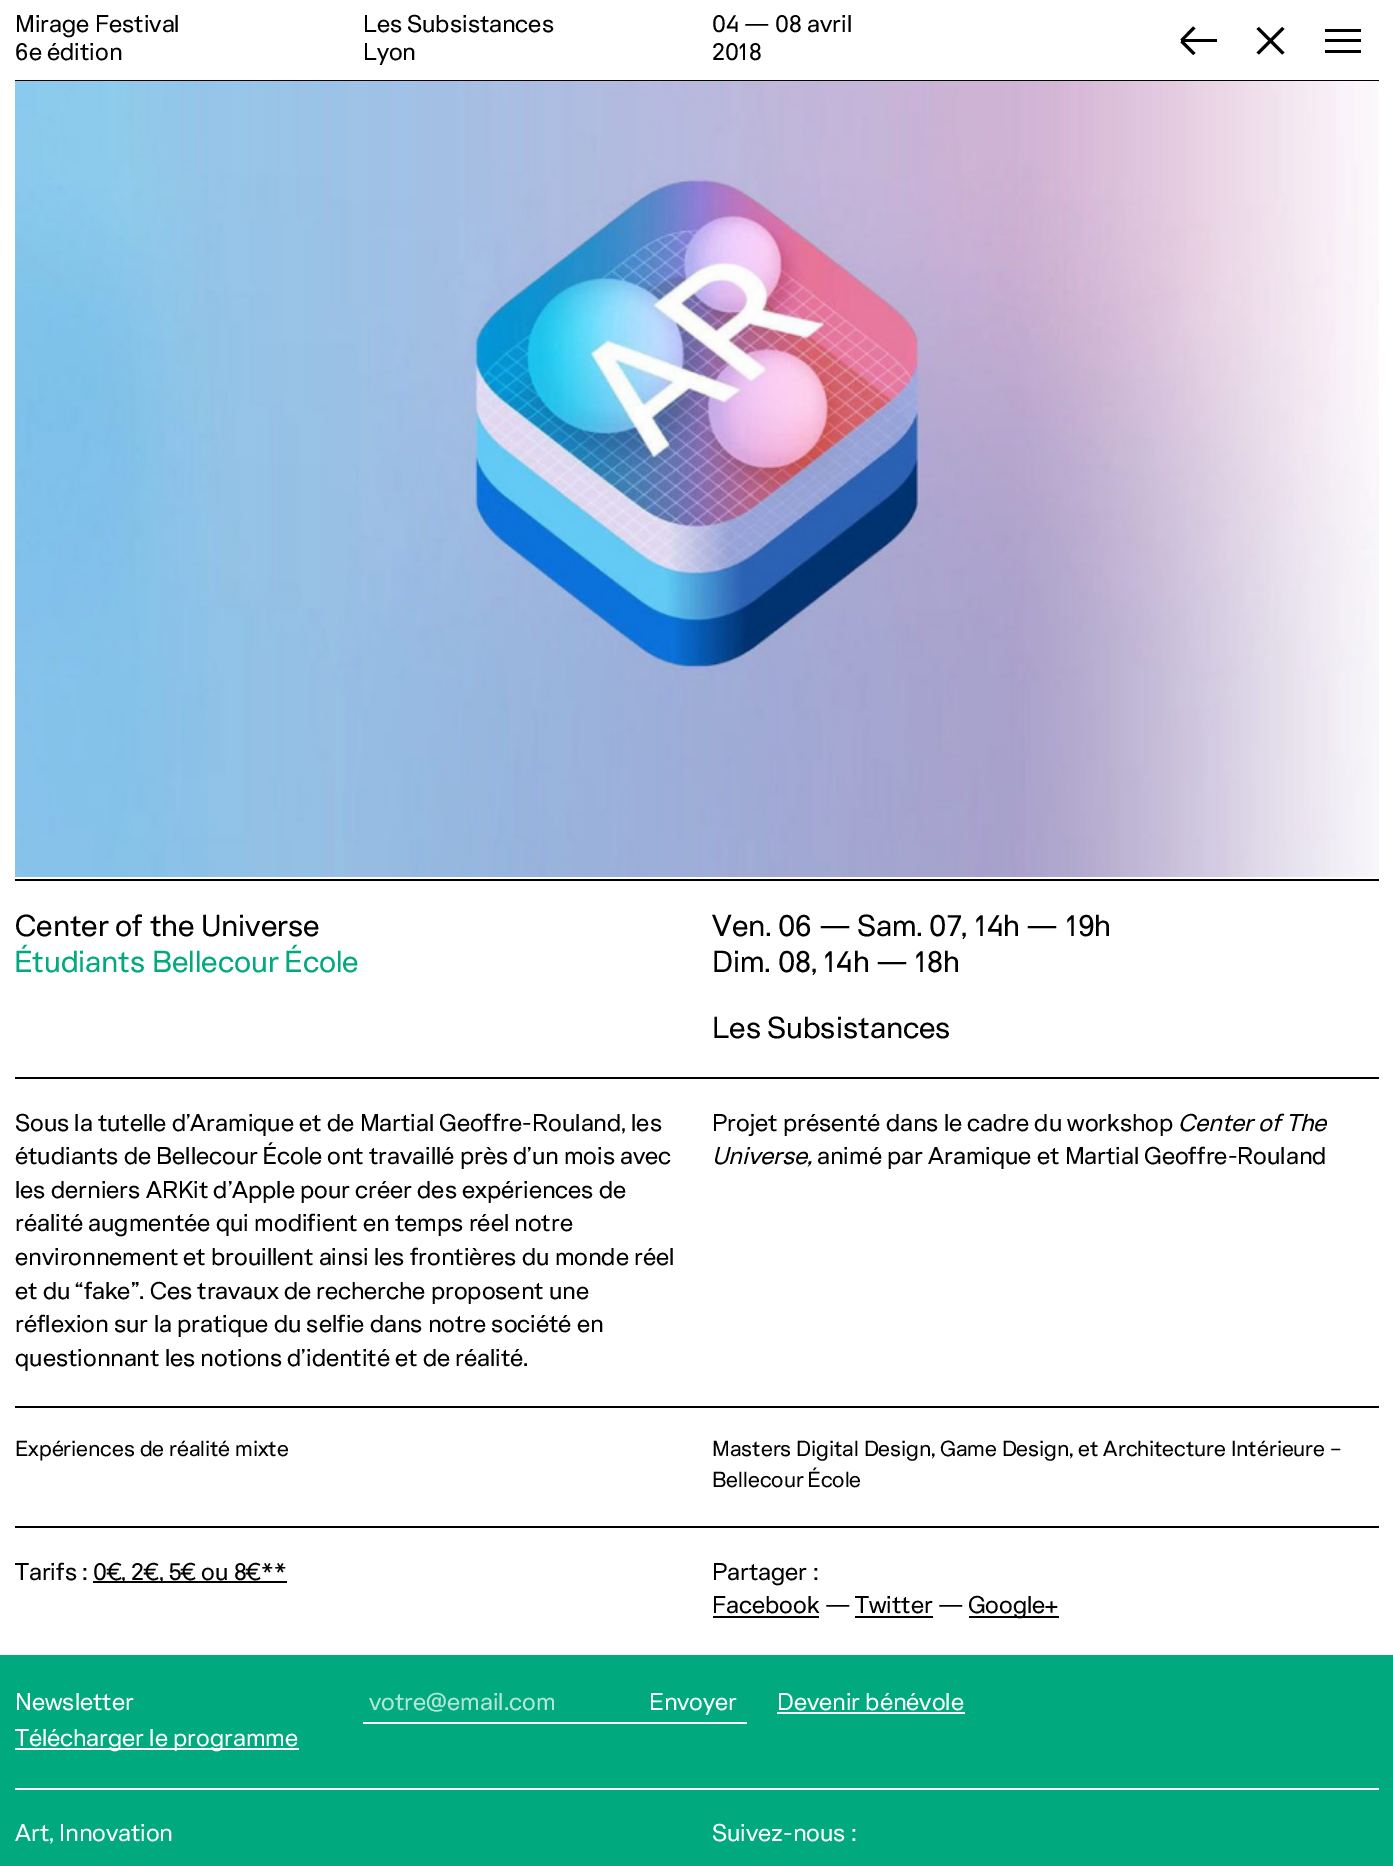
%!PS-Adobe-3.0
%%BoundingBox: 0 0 1393 1866
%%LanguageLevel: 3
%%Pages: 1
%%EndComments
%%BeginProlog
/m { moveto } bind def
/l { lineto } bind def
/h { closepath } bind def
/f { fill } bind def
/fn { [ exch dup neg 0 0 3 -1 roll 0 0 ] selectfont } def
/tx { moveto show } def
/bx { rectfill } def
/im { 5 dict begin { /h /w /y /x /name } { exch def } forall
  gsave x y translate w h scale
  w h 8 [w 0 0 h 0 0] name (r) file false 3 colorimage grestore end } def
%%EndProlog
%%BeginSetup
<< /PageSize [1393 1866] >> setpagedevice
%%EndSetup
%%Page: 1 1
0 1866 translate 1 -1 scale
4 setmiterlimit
0 0.667 0.494 setrgbcolor
0 0 1393 1866 bx
1 setgray
0 0 1393 1655 bx
/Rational-Regular 24 fn
0 setgray
(Mirage Festival) 15 32 tx
(6e édition) 15 60 tx
(Les Subsistances) 363 32 tx
(Lyon) 363 60 tx
(04 — 08 avril) 712 32 tx
(2018) 712 60 tx
1181 39 36 3 bx
1182.5 40 m 1195.5 53 l 1193 55 l 1180.5 42.5 l h f
1180.5 39.5 m 1193 26.5 l 1195.5 28.5 l 1182.5 41.5 l h f
1259 27 m 1284.5 52.5 l 1282 54.5 l 1256.5 29 l h f
1256.5 52.5 m 1282 27 l 1284.5 29 l 1259 54.5 l h f
1325 39 36 3 bx
1325 29 36 3 bx
1325 50 36 3 bx
15 80 1364 1 bx
(image0.raw) 15 81 1364 796 im
15 879 1364 2 bx
/Rational-Regular 30 fn
(Center of the Universe) 15 936 tx
0 0.667 0.494 setrgbcolor
(Étudiants Bellecour École) 15 972 tx
0 setgray
(Ven. 06 — Sam. 07, 14h — 19h) 712 936 tx
(Dim. 08, 14h — 18h) 712 972 tx
(Les Subsistances) 712 1038 tx
15 1077 1364 2 bx
/Rational-Regular 24 fn
(Sous la tutelle d’Aramique et de Martial Geoffre-Rouland, les) 15 1131 tx
(étudiants de Bellecour École ont travaillé près d’un mois avec) 15 1164 tx
(les derniers ARKit d’Apple pour créer des expériences de) 15 1198 tx
(réalité augmentée qui modifient en temps réel notre) 15 1231 tx
(environnement et brouillent ainsi les frontières du monde réel) 15 1265 tx
(et du “fake”. Ces travaux de recherche proposent une) 15 1299 tx
(réflexion sur la pratique du selfie dans notre société en) 15 1332 tx
(questionnant les notions d’identité et de réalité.) 15 1366 tx
(Projet présenté dans le cadre du workshop) 712 1131 tx
/Rational-Italic 24 fn
(Center of The) 1178 1131 tx
(Universe,) 712 1164 tx
/Rational-Regular 24 fn
(animé par Aramique et Martial Geoffre-Rouland) 817 1164 tx
15 1406 1364 2 bx
/Rational-Regular 21.6 fn
(Expériences de réalité mixte) 15 1456 tx
(Masters Digital Design, Game Design, et Architecture Intérieure –) 712 1456 tx
(Bellecour École) 712 1487 tx
15 1526 1364 2 bx
/Rational-Regular 24 fn
(Tarifs :) 15 1580 tx
93 1581 194 2 bx
(0€, 2€, 5€ ou 8€**) 93 1580 tx
(Partager :) 712 1580 tx
(Facebook — Twitter —) 712 1613 tx
713 1616 106 2 bx
969 1616 90 2 bx
(Google+) 968 1613 tx
855 1616 78 2 bx
1 setgray
15 1788 1364 2 bx
(Newsletter) 15 1710 tx
363 1722 384 2 bx
0.702 0.902 0.847 setrgbcolor
(votre@email.com) 369 1710 tx
1 setgray
(Envoyer) 649 1710 tx
(Devenir bénévole) 777 1710 tx
777 1712 188 2 bx
15 1748 284 2 bx
(Télécharger le programme) 15 1746 tx
(Art, Innovation) 15 1841 tx
(Suivez-nous :) 712 1841 tx
showpage
%%EOF
